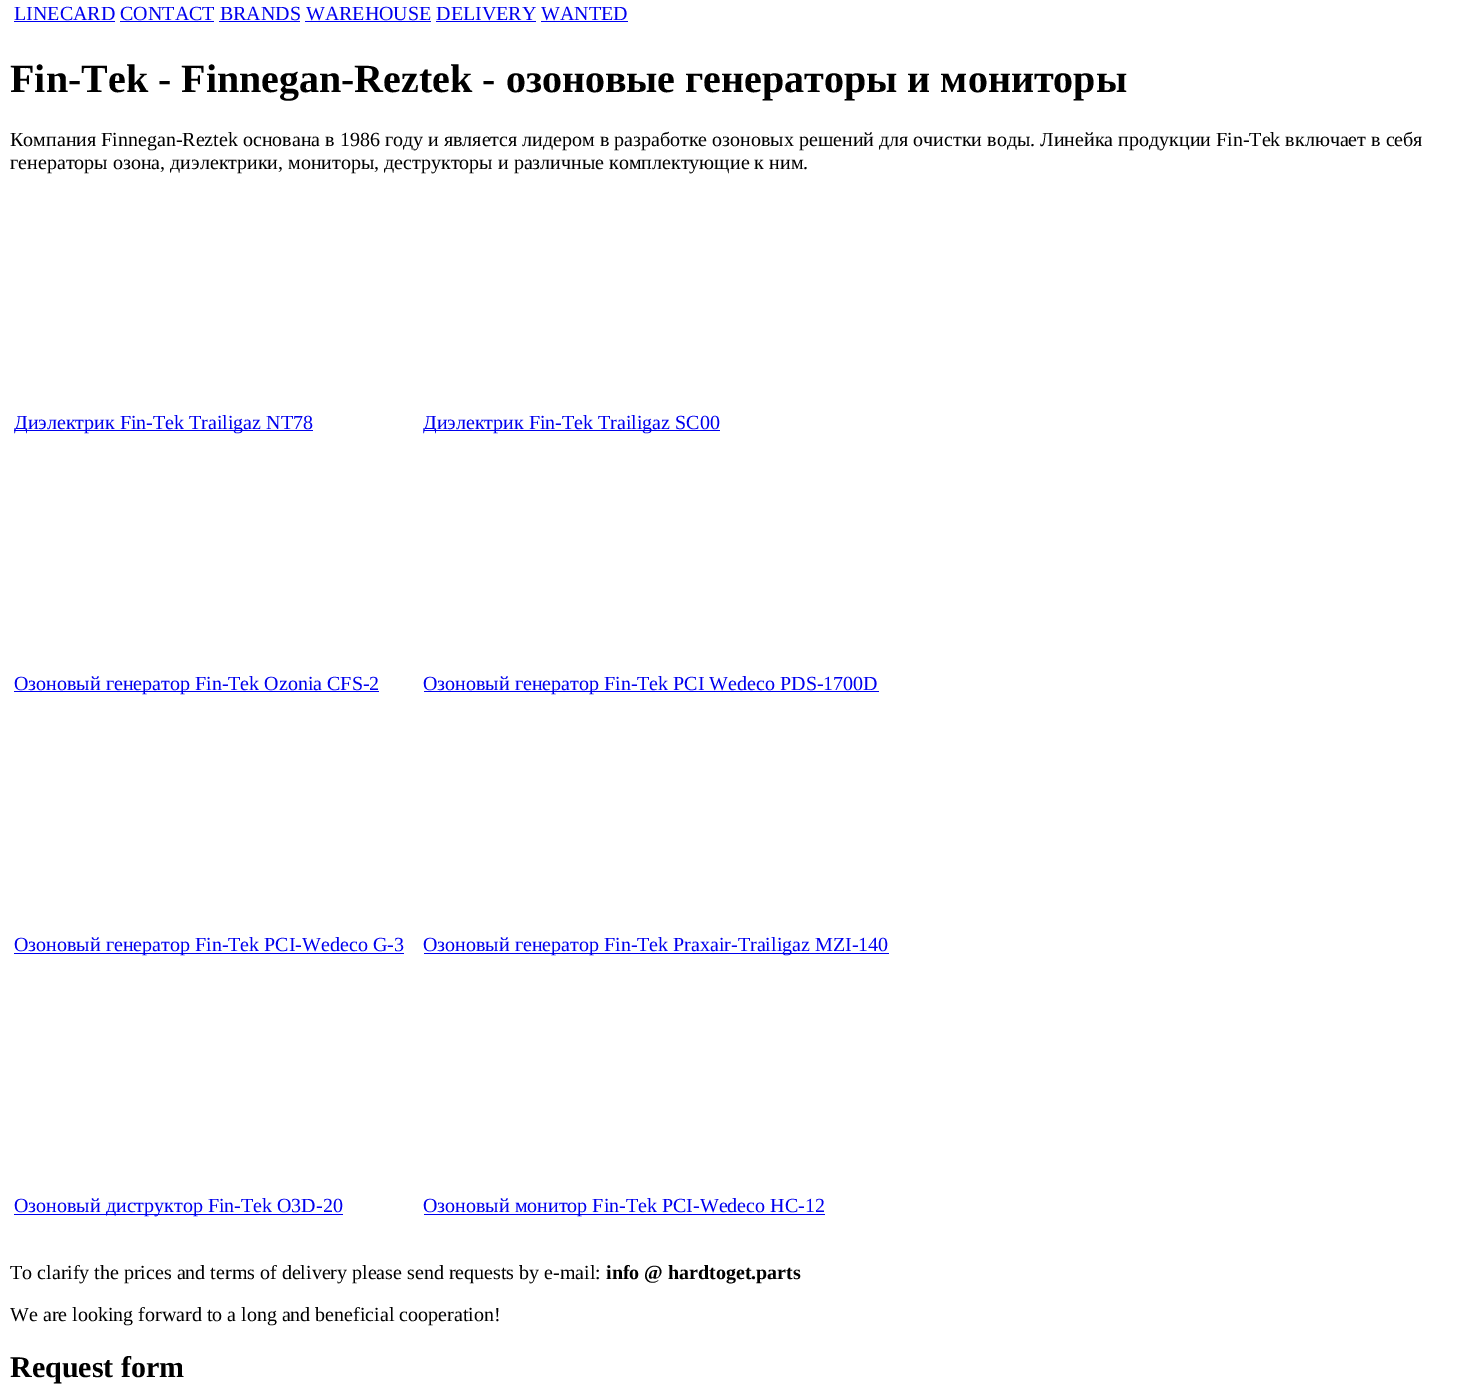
%!PS-Adobe-3.0
%%BoundingBox: 0 0 1476 1391
%%LanguageLevel: 3
%%Pages: 1
%%EndComments
%%BeginProlog
/fn { [ exch dup neg 0 0 3 -1 roll 0 0 ] selectfont } def
/tx { moveto show } def
/bx { rectfill } def
%%EndProlog
%%BeginSetup
<< /PageSize [1476 1391] >> setpagedevice
%%EndSetup
%%Page: 1 1
0 1391 translate 1 -1 scale
4 setmiterlimit
1 setgray
0 0 1476 1391 bx
/LiberationSerif-Regular 20 fn
0 0 0.933 setrgbcolor
(LINECARD CONTACT BRANDS WAREHOUSE DELIVERY WANTED) 14 20 tx
14 21 101 1 bx
120 21 94 1 bx
219 21 81 1 bx
305 21 126 1 bx
436 21 100 1 bx
541 21 87 1 bx
/LiberationSerif-Bold 40 fn
0 setgray
(Fin-Tek - Finnegan-Reztek - озоновые генераторы и мониторы) 10 92 tx
/LiberationSerif-Regular 20 fn
(Компания Finnegan-Reztek основана в 1986 году и является лидером в разработке озоновых решений для очистки воды. Линейка продукции Fin-Tek включает в себя) 10 146 tx
(генераторы озона, диэлектрики, мониторы, деструкторы и различные комплектующие к ним.) 10 169 tx
0 0 0.933 setrgbcolor
14 430 299 1 bx
(Диэлектрик Fin-Tek Trailigaz NT78) 14 429 tx
424 430 296 1 bx
(Диэлектрик Fin-Tek Trailigaz SC00) 423 429 tx
14 691 365 1 bx
(Озоновый генератор Fin-Tek Ozonia CFS-2) 14 690 tx
424 691 455 1 bx
(Озоновый генератор Fin-Tek PCI Wedeco PDS-1700D) 423 690 tx
14 953 390 1 bx
(Озоновый генератор Fin-Tek PCI-Wedeco G-3) 14 951 tx
424 953 465 1 bx
(Озоновый генератор Fin-Tek Praxair-Trailigaz MZI-140) 423 951 tx
14 1214 329 1 bx
(Озоновый диструктор Fin-Tek O3D-20) 14 1212 tx
424 1214 401 1 bx
(Озоновый монитор Fin-Tek PCI-Wedeco HC-12) 423 1212 tx
0 setgray
(To clarify the prices and terms of delivery please send requests by e-mail:) 10 1279 tx
/LiberationSerif-Bold 20 fn
(info @ hardtoget.parts) 606 1279 tx
/LiberationSerif-Regular 20 fn
(We are looking forward to a long and beneficial cooperation!) 10 1321 tx
/LiberationSerif-Bold 30 fn
(Request form) 10 1377 tx
showpage
%%EOF
